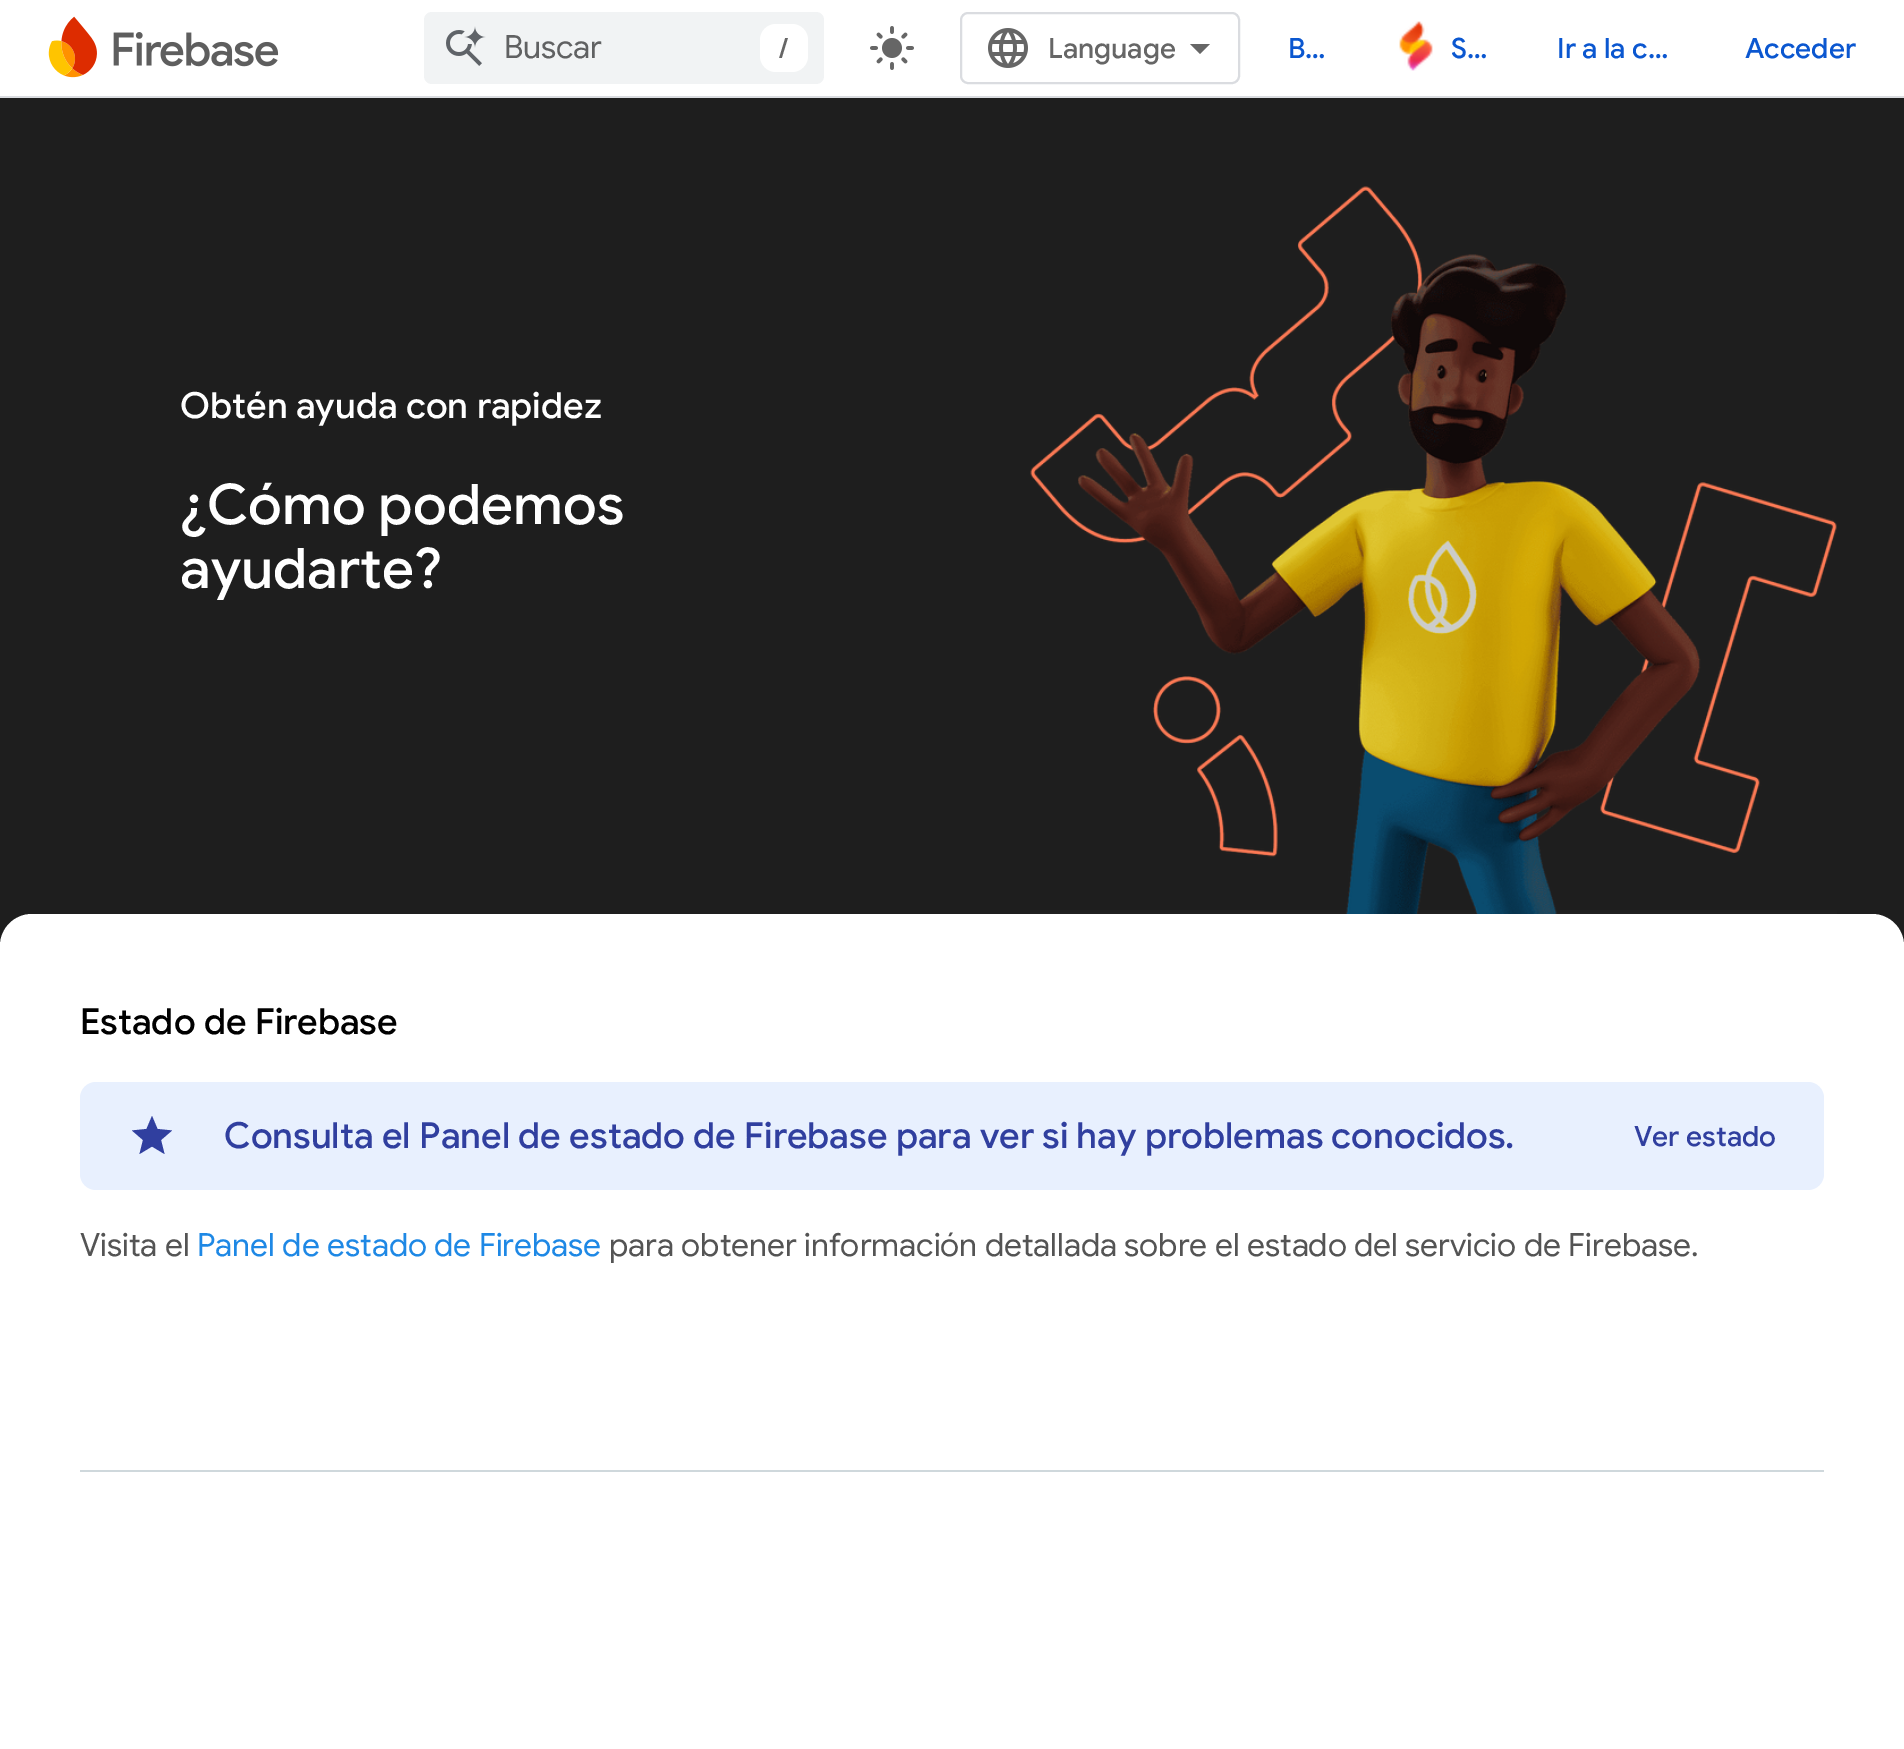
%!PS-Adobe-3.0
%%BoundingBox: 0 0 1904 1749
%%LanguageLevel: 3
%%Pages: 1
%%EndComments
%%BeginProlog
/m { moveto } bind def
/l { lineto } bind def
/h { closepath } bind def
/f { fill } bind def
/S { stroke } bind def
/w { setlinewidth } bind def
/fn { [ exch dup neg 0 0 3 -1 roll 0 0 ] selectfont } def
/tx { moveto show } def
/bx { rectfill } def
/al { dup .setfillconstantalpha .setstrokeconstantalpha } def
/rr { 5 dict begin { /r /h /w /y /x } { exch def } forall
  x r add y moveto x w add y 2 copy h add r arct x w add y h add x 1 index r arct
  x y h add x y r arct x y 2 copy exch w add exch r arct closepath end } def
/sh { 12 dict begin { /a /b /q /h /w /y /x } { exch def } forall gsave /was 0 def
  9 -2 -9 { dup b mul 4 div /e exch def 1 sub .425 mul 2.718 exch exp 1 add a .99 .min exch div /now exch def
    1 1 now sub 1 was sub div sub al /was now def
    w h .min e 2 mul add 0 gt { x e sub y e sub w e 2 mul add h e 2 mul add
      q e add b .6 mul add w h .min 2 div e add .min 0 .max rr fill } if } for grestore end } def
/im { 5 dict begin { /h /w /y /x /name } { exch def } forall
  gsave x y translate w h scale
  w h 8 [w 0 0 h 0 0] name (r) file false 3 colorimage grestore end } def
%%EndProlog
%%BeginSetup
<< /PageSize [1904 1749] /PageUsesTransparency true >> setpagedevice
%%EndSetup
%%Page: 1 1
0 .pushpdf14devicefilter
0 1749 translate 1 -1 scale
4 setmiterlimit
0.118 setgray
0 0 1904 1749 bx
1 setgray
0 0 1904 96 bx
0.855 0.863 0.878 setrgbcolor
0 96 1904 2 bx
(image0.raw) 48 16 231 62 im
0.945 0.953 0.957 setrgbcolor
424 12 400 72 8 rr f
(image1.raw) 446 26 40 40 im
/GoogleSans-Regular 32 fn
0.376 0.38 0.384 setrgbcolor
(Buscar) 504 58 tx
1 setgray
760 24 48 48 16 rr f
/GoogleSans-Medium 28 fn
0.4 setgray
(/) 779 58 tx
(image2.raw) 870 26 44 44 im
0.855 0.863 0.878 setrgbcolor
2 w
961 13 278 70 7 rr S
(image3.raw) 988 28 40 40 im
0.4 setgray
(Language) 1048 58 tx
1200 54 m 1190 44 l 1210 44 l h f
0.043 0.341 0.816 setrgbcolor
(B…) 1288 58 tx
(image4.raw) 1399 21 34 50 im
(S…) 1451 58 tx
(Ir a la c…) 1557 58 tx
(Acceder) 1745 58 tx
/GoogleSans-Medium 36 fn
1 setgray
(Obtén ayuda con rapidez) 180 418 tx
/GoogleSans-Medium 56 fn
(¿Cómo podemos) 180 524 tx
(ayudarte?) 180 588 tx
0.235 0.251 0.263 setrgbcolor
0 916 1904 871 32 2 0.3 sh
(image5.raw) 1030 186 807 728 im
1 setgray
0 914 1904 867 32 rr f
/GoogleSans-Medium 36 fn
0 setgray
(Estado de Firebase) 80 1034 tx
0.91 0.941 0.996 setrgbcolor
80 1082 1744 108 16 rr f
0.188 0.247 0.624 setrgbcolor
152 1146.5 m 139.5 1154 l 143 1140 l 132 1130.5 l 146.5 1129 l 152 1116 l 157.5 1129 l 172 1130.5 l 161 1140 l 164.5 1154 l h f
(Consulta el Panel de estado de Firebase para ver si hay problemas conocidos.) 224 1148 tx
/GoogleSans-Medium 28 fn
(Ver estado) 1634 1146 tx
/GoogleSans-Regular 32 fn
0.329 setgray
(Visita el) 80 1256 tx
0.118 0.533 0.898 setrgbcolor
(Panel de estado de Firebase) 197 1256 tx
0.329 setgray
(para obtener información detallada sobre el estado del servicio de Firebase.) 609 1256 tx
0.812 0.847 0.863 setrgbcolor
80 1470 1744 2 bx
.poppdf14devicefilter showpage
%%EOF
